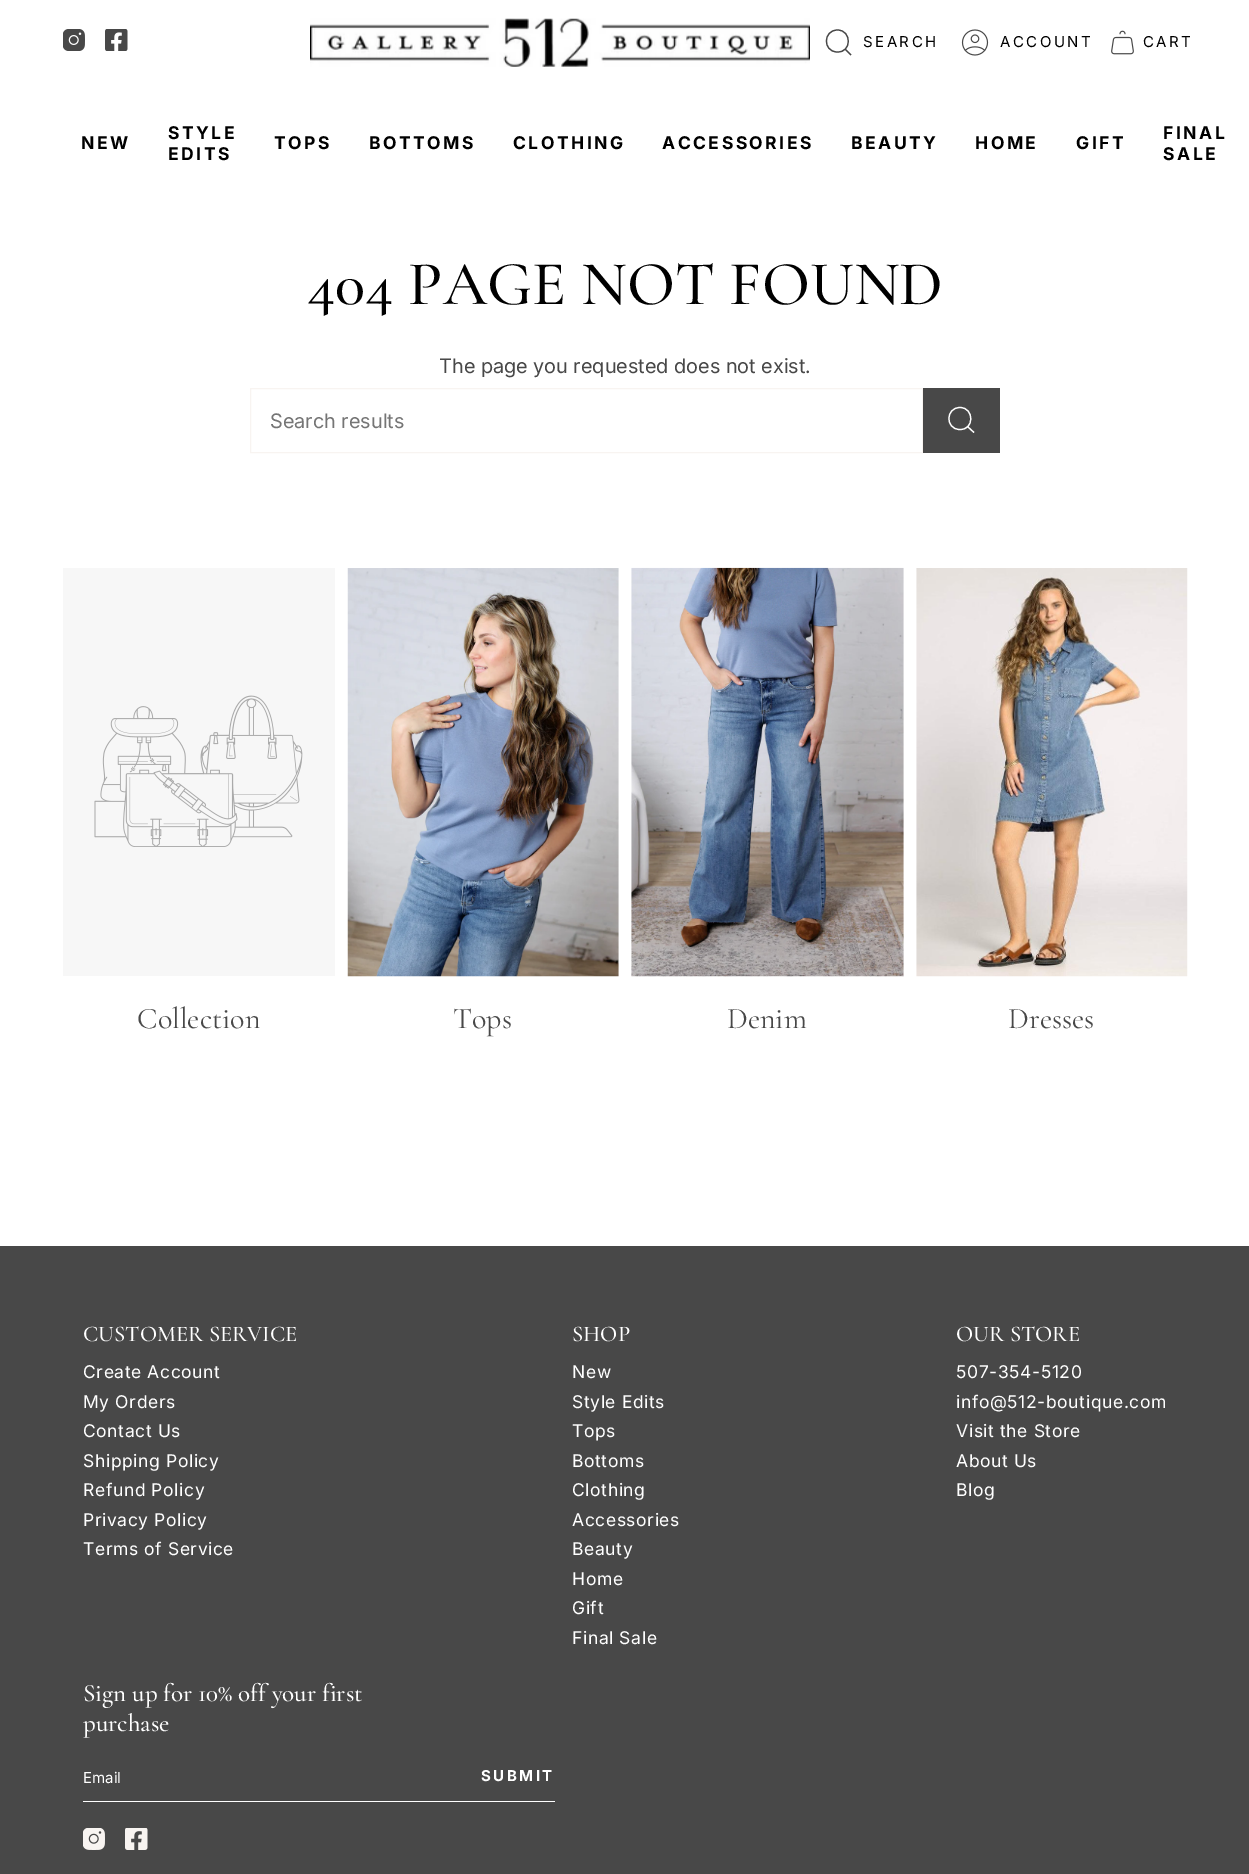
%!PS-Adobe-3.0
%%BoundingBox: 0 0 1249 1874
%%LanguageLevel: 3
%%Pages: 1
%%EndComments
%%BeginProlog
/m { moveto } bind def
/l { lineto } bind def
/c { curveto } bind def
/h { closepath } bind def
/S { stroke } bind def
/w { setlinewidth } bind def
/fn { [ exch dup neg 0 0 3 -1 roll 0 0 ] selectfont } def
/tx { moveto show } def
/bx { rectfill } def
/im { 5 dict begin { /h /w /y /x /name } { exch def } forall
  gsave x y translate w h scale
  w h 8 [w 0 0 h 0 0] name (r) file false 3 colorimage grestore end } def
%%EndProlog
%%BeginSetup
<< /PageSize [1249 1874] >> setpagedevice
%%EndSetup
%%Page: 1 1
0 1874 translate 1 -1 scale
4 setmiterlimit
1 setgray
0 0 1249 1874 bx
(image0.raw) 63 29 22 22 im
(image1.raw) 105 29 23 22 im
(image2.raw) 310 18 500 49 im
0.282 setgray
1.2 w
837.5 30 m 852 30 852 53 837 52 c 822.5 51.5 823 30 837.5 30 c h 845 49 m 851 55 l S
/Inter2-Regular 15 fn
0 setgray
863 47 m 2.5 0 (SEARCH) ashow
(image3.raw) 961 29 28 27 im
1000 47 m 2.5 0 (ACCOUNT) ashow
(image4.raw) 1111 30 23 25 im
1143 47 m 2.5 0 (CART) ashow
/Inter-Bold 17.5 fn
81 149 m 2.5 0 (NEW) ashow
168 139 m 2.5 0 (STYLE) ashow
168 160 m 2.5 0 (EDITS) ashow
274 149 m 2.5 0 (TOPS) ashow
369 149 m 2.5 0 (BOTTOMS) ashow
513 149 m 2.5 0 (CLOTHING) ashow
662 149 m 2.5 0 (ACCESSORIES) ashow
851 149 m 2.5 0 (BEAUTY) ashow
975 149 m 2.5 0 (HOME) ashow
1076 149 m 2.5 0 (GIFT) ashow
1163 139 m 2.5 0 (FINAL) ashow
1163 160 m 2.5 0 (SALE) ashow
/CormorantGaramond-Medium 62.75 fn
(404 PAGE NOT FOUND) 307 304 tx
/Inter-Regular 20 fn
0.282 setgray
(The page you requested does not exist.) 439 373 tx
0.973 0.957 0.945 setrgbcolor
1 w
250.5 388.5 672 64 rectstroke
0.459 setgray
(Search results) 270 428 tx
0.282 setgray
923 388 77 65 bx
1 setgray
1.2 w
960 407.5 m 974.5 407.5 974.5 430.5 959.5 429.5 c 945 429 945.5 407.5 960 407.5 c h 967.5 426.5 m 974 432.5 l S
0.969 setgray
63 568 272 408 bx
(image5.raw) 94 695 209 152 im
/CormorantGaramond-Regular 30 fn
0.282 setgray
(Collection) 137 1028 tx
(image6.raw) 347 568 272 409 im
(Tops) 453 1028 tx
(image7.raw) 631 567 273 410 im
(Denim) 727 1028 tx
(image8.raw) 916 568 272 409 im
(Dresses) 1008 1028 tx
0 1246 1249 628 bx
/CormorantGaramond-Medium 22.5 fn
1 setgray
(CUSTOMER SERVICE) 83 1341 tx
/Inter2-Regular 17.5 fn
83 1378 m 0.6 0 (Create Account) ashow
83 1408 m 0.6 0 (My Orders) ashow
83 1437 m 0.6 0 (Contact Us) ashow
83 1467 m 0.6 0 (Shipping Policy) ashow
83 1496 m 0.6 0 (Refund Policy) ashow
83 1526 m 0.6 0 (Privacy Policy) ashow
83 1555 m 0.6 0 (Terms of Service) ashow
/CormorantGaramond-Medium 22.5 fn
(SHOP) 572 1341 tx
/Inter2-Regular 17.5 fn
572 1378 m 0.6 0 (New) ashow
572 1408 m 0.6 0 (Style Edits) ashow
572 1437 m 0.6 0 (Tops) ashow
572 1467 m 0.6 0 (Bottoms) ashow
572 1496 m 0.6 0 (Clothing) ashow
572 1526 m 0.6 0 (Accessories) ashow
572 1555 m 0.6 0 (Beauty) ashow
572 1585 m 0.6 0 (Home) ashow
572 1614 m 0.6 0 (Gift) ashow
572 1644 m 0.6 0 (Final Sale) ashow
/CormorantGaramond-Medium 22.5 fn
(OUR STORE) 956 1341 tx
/Inter2-Regular 17.5 fn
956 1378 m 0.6 0 (507-354-5120) ashow
956 1408 m 0.6 0 (info@512-boutique.com) ashow
956 1437 m 0.6 0 (Visit the Store) ashow
956 1467 m 0.6 0 (About Us) ashow
956 1496 m 0.6 0 (Blog) ashow
/CormorantGaramond-Medium 25 fn
(Sign up for 10% off your first) 83 1701 tx
(purchase) 83 1731 tx
83 1801 472 1 bx
/Inter2-Regular 15 fn
(Email) 83 1783 tx
/Inter-Bold 15 fn
481 1781 m 2.5 0 (SUBMIT) ashow
(image9.raw) 83 1828 22 22 im
(image10.raw) 125 1828 23 22 im
showpage
%%EOF
